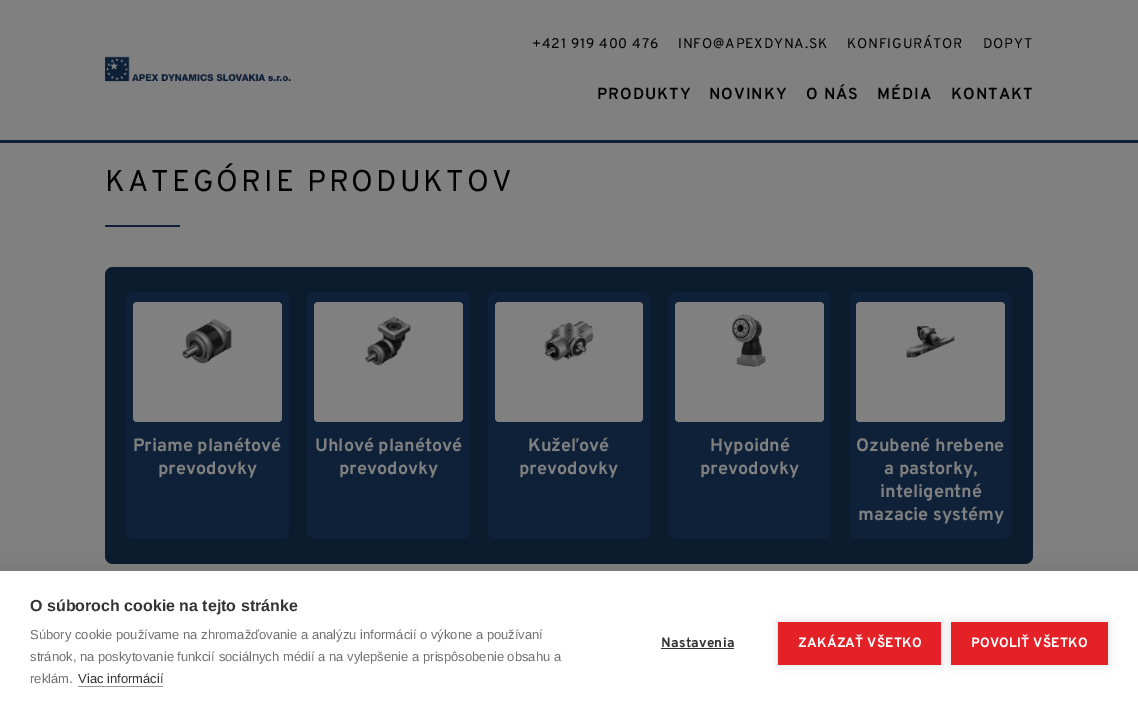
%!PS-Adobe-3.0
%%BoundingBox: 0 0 1138 715
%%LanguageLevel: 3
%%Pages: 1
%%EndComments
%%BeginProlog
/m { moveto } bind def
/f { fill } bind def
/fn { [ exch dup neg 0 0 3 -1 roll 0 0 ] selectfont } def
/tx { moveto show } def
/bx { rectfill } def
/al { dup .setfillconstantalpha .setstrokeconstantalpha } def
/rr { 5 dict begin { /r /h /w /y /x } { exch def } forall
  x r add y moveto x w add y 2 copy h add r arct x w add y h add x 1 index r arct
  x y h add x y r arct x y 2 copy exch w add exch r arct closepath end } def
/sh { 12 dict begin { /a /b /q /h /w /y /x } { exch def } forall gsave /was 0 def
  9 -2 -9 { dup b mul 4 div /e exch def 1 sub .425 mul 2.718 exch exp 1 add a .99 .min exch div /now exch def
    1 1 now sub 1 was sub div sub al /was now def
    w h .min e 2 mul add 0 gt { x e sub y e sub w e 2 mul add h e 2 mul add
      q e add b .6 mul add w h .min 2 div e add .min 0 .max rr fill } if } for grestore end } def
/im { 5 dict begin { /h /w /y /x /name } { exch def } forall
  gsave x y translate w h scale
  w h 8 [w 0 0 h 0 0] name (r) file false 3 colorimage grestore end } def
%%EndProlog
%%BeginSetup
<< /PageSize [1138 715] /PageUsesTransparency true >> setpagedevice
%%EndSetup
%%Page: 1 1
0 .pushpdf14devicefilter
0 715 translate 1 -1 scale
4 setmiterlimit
0.502 setgray
0 0 1138 715 bx
0.055 0.129 0.224 setrgbcolor
0 140 1138 3 bx
(image0.raw) 105 56 186 26 im
/Overpass-Regular 14 fn
0 setgray
532 48 m 0.8 0 (+421 919 400 476) ashow
678 48 m 0.8 0 (INFO@APEXDYNA.SK) ashow
847 48 m 0.8 0 (KONFIGURÁTOR) ashow
983 48 m 0.8 0 (DOPYT) ashow
/Overpass-SemiBold 16 fn
597 99 m 1 0 (PRODUKTY) ashow
709 99 m 1 0 (NOVINKY) ashow
806 99 m 1 0 (O NÁS) ashow
877 99 m 1 0 (MÉDIA) ashow
951 99 m 1 0 (KONTAKT) ashow
/Overpass-Regular 30 fn
105 191 m 3 0 (KATEGÓRIE PRODUKTOV) ashow
0.055 0.129 0.224 setrgbcolor
105 225 75 2 bx
0.047 0.11 0.184 setrgbcolor
105 267 928 297 8 rr f
0.055 0.129 0.224 setrgbcolor
126 292 163 247 8 rr f
0.502 setgray
133 302 149 120 4 rr f
(image1.raw) 182 319 50 45 im
/Overpass-Bold 18 fn
(Priame planétové) 133 451 tx
(prevodovky) 158 474 tx
0.055 0.129 0.224 setrgbcolor
307 292 163 247 8 rr f
0.502 setgray
314 302 149 120 4 rr f
(image2.raw) 365 316 46 50 im
(Uhlové planétové) 315 451 tx
(prevodovky) 339 474 tx
0.055 0.129 0.224 setrgbcolor
488 292 162 247 8 rr f
0.502 setgray
495 302 148 120 4 rr f
(image3.raw) 544 321 50 40 im
(Kužeľové) 528 451 tx
(prevodovky) 519 474 tx
0.055 0.129 0.224 setrgbcolor
668 292 163 247 8 rr f
0.502 setgray
675 302 149 120 4 rr f
(image4.raw) 732 314 34 53 im
(Hypoidné) 710 451 tx
(prevodovky) 700 474 tx
0.055 0.129 0.224 setrgbcolor
849 292 163 247 8 rr f
0.502 setgray
856 302 149 120 4 rr f
(image5.raw) 906 326 49 32 im
(Ozubené hrebene) 856 451 tx
(a pastorky,) 884 474 tx
(inteligentné) 880 497 tx
(mazacie systémy) 858 520 tx
0 setgray
0 571 1138 144 0 10 0.1 sh
1 setgray
0 571 1138 144 bx
/LiberationSans-Bold 16 fn
0.2 setgray
(O súboroch cookie na tejto stránke) 30 611 tx
/LiberationSans-Regular 13 fn
0.439 setgray
(Súbory cookie používame na zhromažďovanie a analýzu informácií o výkone a používaní) 30 639 tx
(stránok, na poskytovanie funkcií sociálnych médií a na vylepšenie a prispôsobenie obsahu a) 30 661 tx
(reklám.) 30 683 tx
0.2 setgray
(Viac informácií) 78 683 tx
0.6 setgray
78 686 85 1 bx
/Overpass-Bold 13.5 fn
0.2 setgray
661 647 m 0.25 0 (Nastavenia) ashow
661 648 73 1 bx
0 setgray
778 622 163 43 0 5 0.12 sh
0.894 0.129 0.153 setrgbcolor
778 622 163 43 bx
1 setgray
798 647 m 0.25 0 (ZAKÁZAŤ VŠETKO) ashow
0 setgray
951 622 157 43 0 5 0.12 sh
0.894 0.129 0.153 setrgbcolor
951 622 157 43 bx
1 setgray
971 647 m 0.25 0 (POVOLIŤ VŠETKO) ashow
.poppdf14devicefilter showpage
%%EOF
